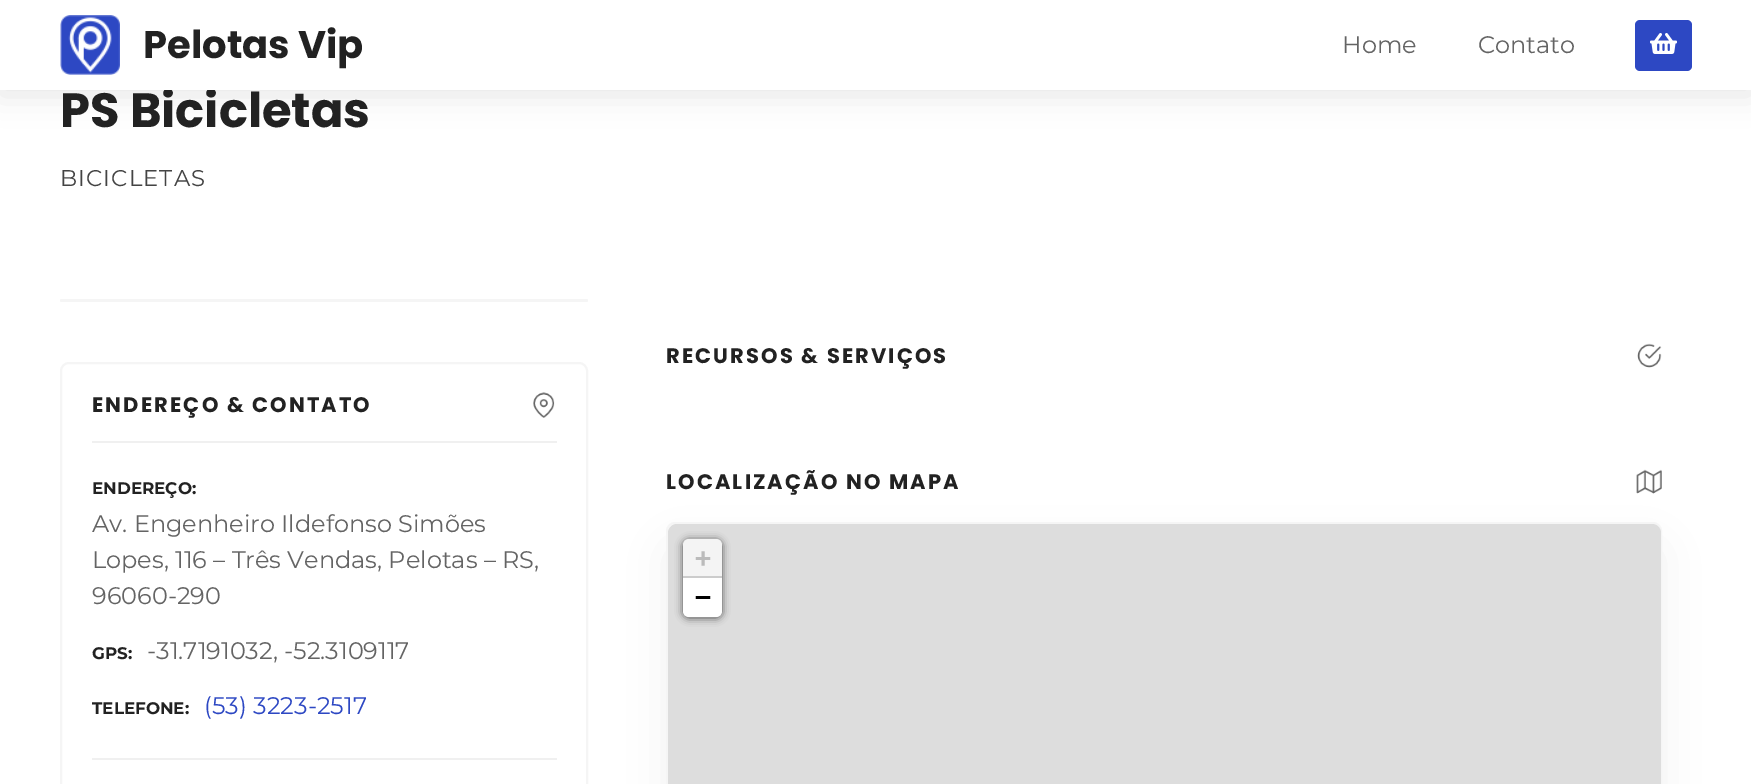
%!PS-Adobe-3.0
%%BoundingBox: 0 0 1751 784
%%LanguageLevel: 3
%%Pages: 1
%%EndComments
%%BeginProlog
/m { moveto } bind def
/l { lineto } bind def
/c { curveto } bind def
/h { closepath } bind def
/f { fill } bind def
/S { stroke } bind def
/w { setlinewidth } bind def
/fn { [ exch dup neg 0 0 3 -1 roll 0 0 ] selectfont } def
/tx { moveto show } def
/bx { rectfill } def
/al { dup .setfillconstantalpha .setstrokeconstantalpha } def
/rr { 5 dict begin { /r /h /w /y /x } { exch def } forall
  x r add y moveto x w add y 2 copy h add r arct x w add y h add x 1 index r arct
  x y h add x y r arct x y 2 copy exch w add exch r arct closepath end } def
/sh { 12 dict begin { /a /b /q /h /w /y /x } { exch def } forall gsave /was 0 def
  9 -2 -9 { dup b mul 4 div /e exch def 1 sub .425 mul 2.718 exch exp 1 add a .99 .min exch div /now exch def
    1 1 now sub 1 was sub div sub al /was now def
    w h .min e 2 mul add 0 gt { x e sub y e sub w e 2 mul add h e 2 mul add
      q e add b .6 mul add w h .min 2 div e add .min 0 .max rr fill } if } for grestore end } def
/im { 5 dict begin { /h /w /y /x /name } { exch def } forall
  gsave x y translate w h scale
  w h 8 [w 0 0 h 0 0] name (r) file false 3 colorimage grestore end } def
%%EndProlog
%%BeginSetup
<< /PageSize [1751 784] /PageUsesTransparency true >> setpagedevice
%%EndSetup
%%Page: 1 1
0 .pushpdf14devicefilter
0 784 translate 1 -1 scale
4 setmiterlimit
1 setgray
0 0 1751 784 bx
0 setgray
0 5 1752 90 0 15 0.1 sh
/Poppins-Bold 48 fn
0.133 setgray
(PS Bicicletas) 60 127 tx
1 setgray
0 0 1751 90 bx
(image0.raw) 60 15 60 60 im
/Poppins-Bold 38.5 fn
0.133 setgray
(Pelotas Vip) 143 58 tx
/Montserrat-Regular 24 fn
0.392 setgray
(Home) 1342 53 tx
(Contato) 1478 53 tx
0.176 0.282 0.765 setrgbcolor
1635 20 57 51 5 rr f
(image1.raw) 1650 33 27 21 im
/Montserrat-Regular 22.75 fn
0.267 setgray
60 186 m 1.1 0 (BICICLETAS) ashow
0.961 setgray
60 299 528 3 1.5 rr f
2 w
61 363 526 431 8 rr S
/Poppins-Bold 21 fn
0.133 setgray
92 412 m 2.1 0 (ENDEREÇO & CONTATO) ashow
(image2.raw) 533 392 22 26 im
0.941 setgray
92 441 465 2 bx
/Montserrat-Bold 16.75 fn
0.133 setgray
(ENDEREÇO:) 92 494 tx
/Montserrat-Regular 24 fn
0.392 setgray
(Av. Engenheiro Ildefonso Simões) 92 532 tx
(Lopes, 116 – Três Vendas, Pelotas – RS,) 92 568 tx
(96060-290) 92 604 tx
/Montserrat-Bold 16.75 fn
0.133 setgray
(GPS:) 92 659 tx
/Montserrat-Regular 24 fn
0.392 setgray
(-31.7191032, -52.3109117) 147 659 tx
/Montserrat-Bold 16.75 fn
0.133 setgray
(TELEFONE:) 92 714 tx
/Montserrat-Regular 24 fn
0.176 0.282 0.765 setrgbcolor
(\(53\) 3223-2517) 204 714 tx
0.941 setgray
92 758 465 2 bx
/Poppins-Bold 21 fn
0.133 setgray
666 363 m 2.1 0 (RECURSOS & SERVIÇOS) ashow
(image3.raw) 1637 343 25 25 im
666 489 m 2.1 0 (LOCALIZAÇÃO NO MAPA) ashow
(image4.raw) 1636 469 26 25 im
0 setgray
666 545 996 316 9 22.5 0.05 sh
0.961 setgray
667 523 994 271 8 rr S
0.867 setgray
668 524 993 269 9 rr f
0 setgray
683 540 39 78 6 4 0.65 sh
0.957 setgray
689 539 m 716 539 l 719.5 539 722 541.5 722 545 c 722 578 l 683 578 l 683 545 l 683 541.5 685.5 539 689 539 c h f
0.8 setgray
683 576 39 2 bx
/DejaVuSansMono-Bold 27 fn
0.733 setgray
(+) 695 567 tx
1 setgray
683 578 m 722 578 l 722 611 l 722 614.5 719.5 617 716 617 c 689 617 l 685.5 617 683 614.5 683 611 c h f
0 setgray
(−) 695 606 tx
.poppdf14devicefilter showpage
%%EOF
